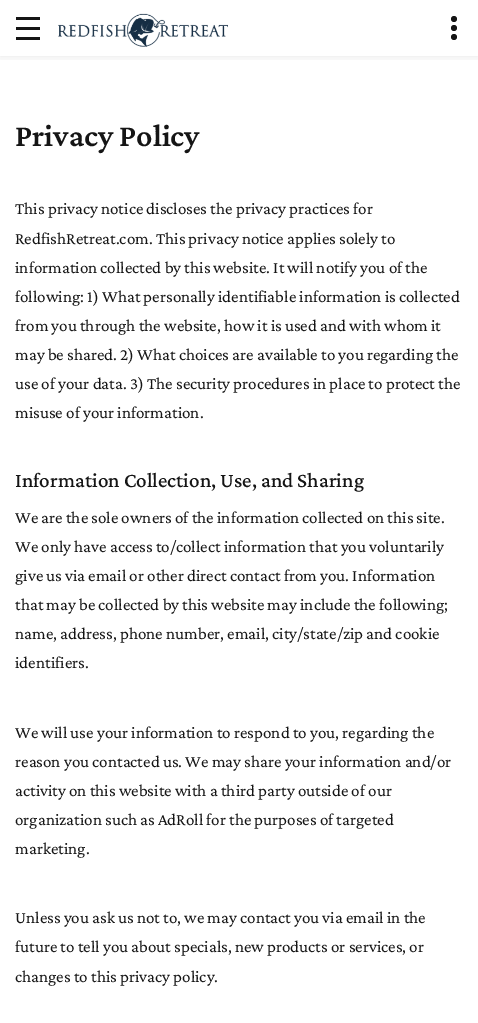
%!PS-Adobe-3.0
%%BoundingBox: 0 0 478 1023
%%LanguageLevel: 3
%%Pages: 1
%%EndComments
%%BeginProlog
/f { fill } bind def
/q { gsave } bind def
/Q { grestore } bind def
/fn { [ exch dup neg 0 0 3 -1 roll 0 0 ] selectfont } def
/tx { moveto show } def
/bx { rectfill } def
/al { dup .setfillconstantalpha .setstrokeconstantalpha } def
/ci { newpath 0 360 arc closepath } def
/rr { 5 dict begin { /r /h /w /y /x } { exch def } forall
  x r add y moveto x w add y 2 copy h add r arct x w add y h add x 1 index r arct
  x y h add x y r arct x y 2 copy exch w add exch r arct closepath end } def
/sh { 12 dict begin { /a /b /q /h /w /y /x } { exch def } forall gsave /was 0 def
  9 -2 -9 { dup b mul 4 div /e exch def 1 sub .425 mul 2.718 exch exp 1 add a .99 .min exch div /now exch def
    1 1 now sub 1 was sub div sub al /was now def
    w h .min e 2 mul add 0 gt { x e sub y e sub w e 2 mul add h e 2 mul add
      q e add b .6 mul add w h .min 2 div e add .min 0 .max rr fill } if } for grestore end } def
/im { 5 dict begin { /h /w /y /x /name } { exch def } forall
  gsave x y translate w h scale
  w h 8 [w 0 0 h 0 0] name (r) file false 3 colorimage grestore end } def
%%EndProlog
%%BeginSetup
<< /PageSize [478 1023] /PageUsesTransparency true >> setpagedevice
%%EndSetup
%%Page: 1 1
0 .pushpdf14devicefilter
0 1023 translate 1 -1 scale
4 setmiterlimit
1 setgray
0 0 478 1023 bx
q
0 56 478 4 rectclip
0 setgray
0 0 478 56 0 5 0.1 sh
Q
0.082 setgray
16 27 24 3 bx
16 17 24 3 bx
16 37 24 3 bx
(image0.raw) 58 13 170 34 im
454 28 3 ci f
454 19 3 ci f
454 37 3 ci f
/CrimsonPro-SemiBold 32 fn
(Privacy Policy) 15 146 tx
/CrimsonPro-Regular 17 fn
(This privacy notice discloses the privacy practices for) 15 214 tx
(RedfishRetreat.com. This privacy notice applies solely to) 15 244 tx
(information collected by this website. It will notify you of the) 15 273 tx
(following: 1\) What personally identifiable information is collected) 15 302 tx
(from you through the website, how it is used and with whom it) 15 331 tx
(may be shared. 2\) What choices are available to you regarding the) 15 360 tx
(use of your data. 3\) The security procedures in place to protect the) 15 389 tx
(misuse of your information.) 15 418 tx
/CrimsonPro-Medium 21 fn
(Information Collection, Use, and Sharing) 15 487 tx
/CrimsonPro-Regular 17 fn
(We are the sole owners of the information collected on this site.) 15 523 tx
(We only have access to/collect information that you voluntarily) 15 552 tx
(give us via email or other direct contact from you. Information) 15 581 tx
(that may be collected by this website may include the following;) 15 610 tx
(name, address, phone number, email, city/state/zip and cookie) 15 639 tx
(identifiers.) 15 668 tx
(We will use your information to respond to you, regarding the) 15 738 tx
(reason you contacted us. We may share your information and/or) 15 767 tx
(activity on this website with a third party outside of our) 15 796 tx
(organization such as AdRoll for the purposes of targeted) 15 825 tx
(marketing.) 15 854 tx
(Unless you ask us not to, we may contact you via email in the) 15 923 tx
(future to tell you about specials, new products or services, or) 15 952 tx
(changes to this privacy policy.) 15 982 tx
.poppdf14devicefilter showpage
%%EOF
